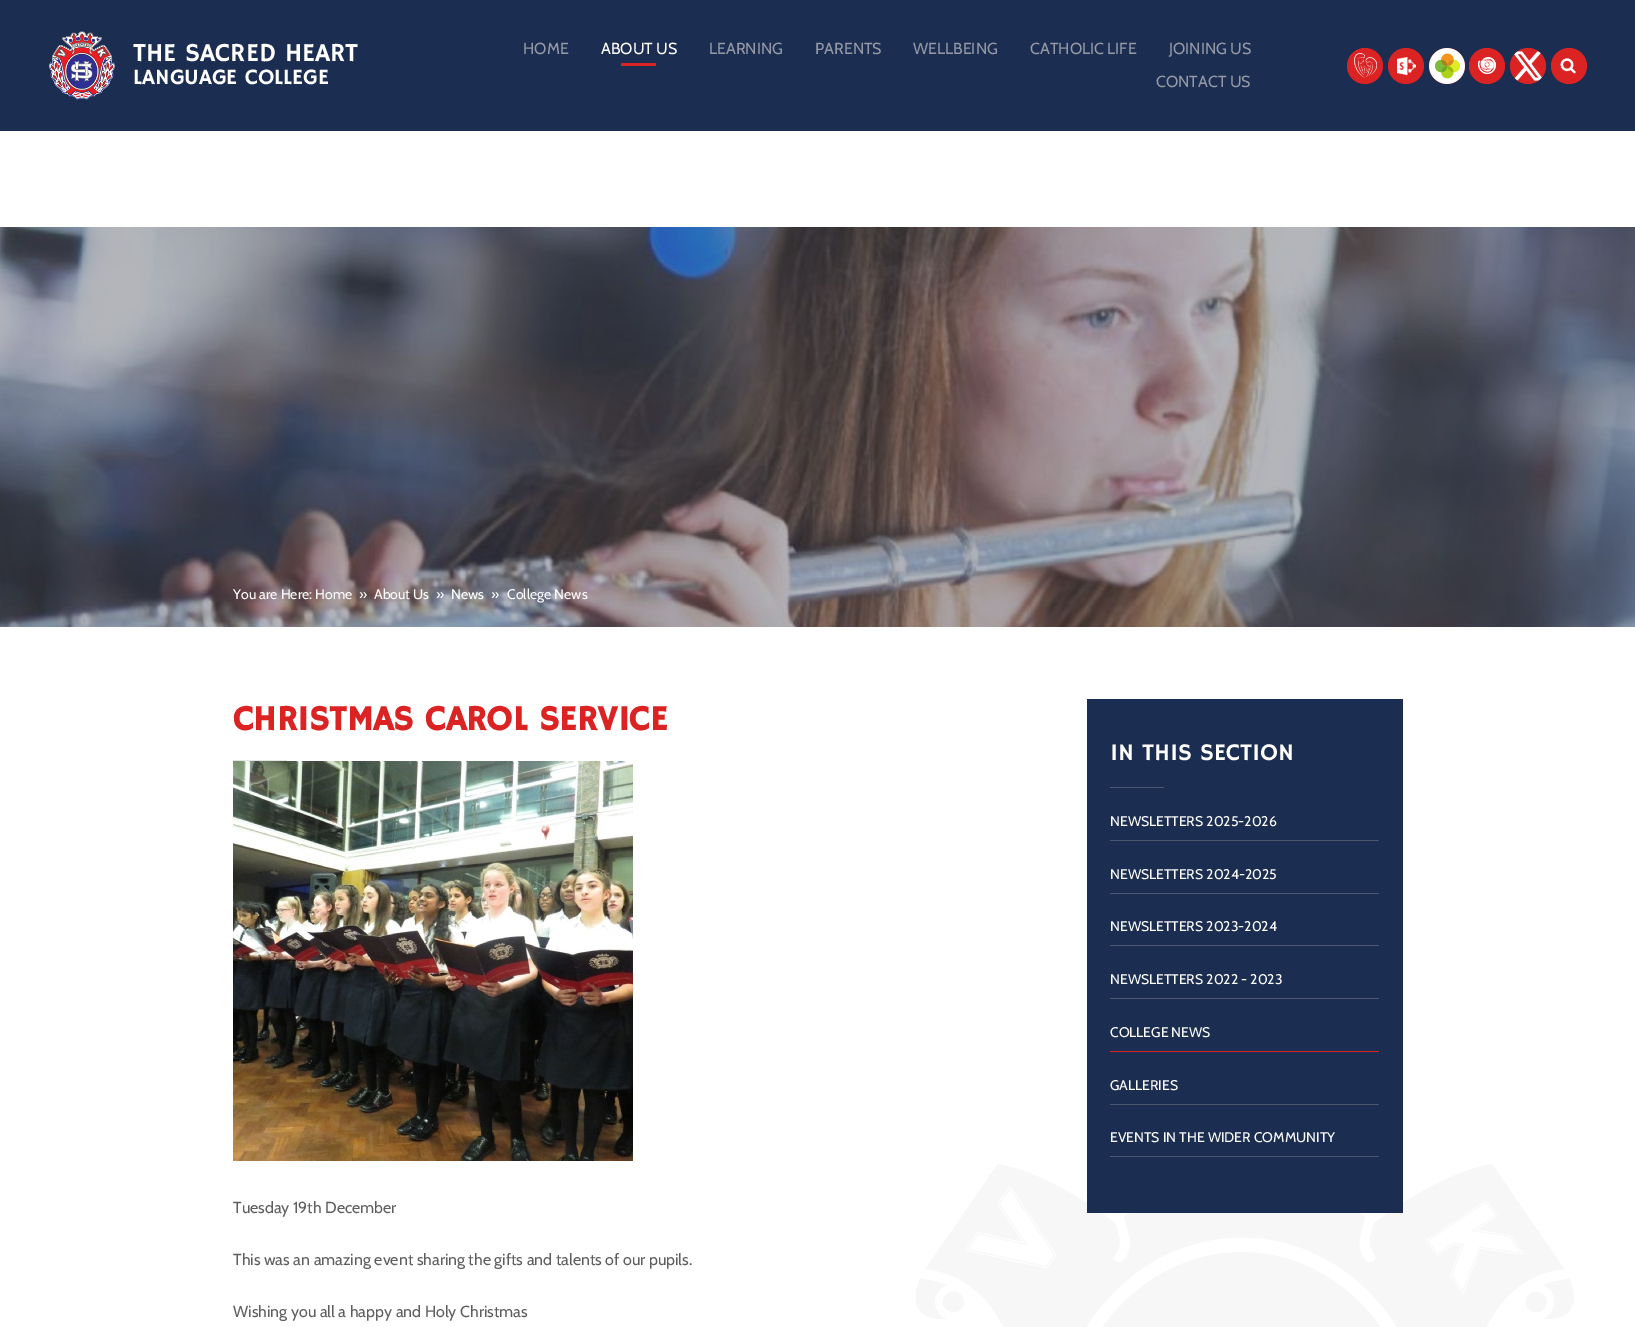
%!PS-Adobe-3.0
%%BoundingBox: 0 0 1635 1327
%%LanguageLevel: 3
%%Pages: 1
%%EndComments
%%BeginProlog
/f { fill } bind def
/fn { [ exch dup neg 0 0 3 -1 roll 0 0 ] selectfont } def
/tx { moveto show } def
/bx { rectfill } def
/ci { newpath 0 360 arc closepath } def
/im { 5 dict begin { /h /w /y /x /name } { exch def } forall
  gsave x y translate w h scale
  w h 8 [w 0 0 h 0 0] name (r) file false 3 colorimage grestore end } def
%%EndProlog
%%BeginSetup
<< /PageSize [1635 1327] >> setpagedevice
%%EndSetup
%%Page: 1 1
0 1327 translate 1 -1 scale
4 setmiterlimit
1 setgray
0 0 1635 1327 bx
0.106 0.176 0.314 setrgbcolor
0 0 1635 131 bx
(image0.raw) 49 31 66 69 im
/HammersmithOne-Regular 26 fn
1 setgray
(THE SACRED HEART) 133 61 tx
/HammersmithOne-Regular 22 fn
(LANGUAGE COLLEGE) 133 84 tx
/Cabin-Regular 16 fn
0.58 0.6 0.647 setrgbcolor
(HOME) 523 54 tx
1 setgray
(ABOUT US) 601 54 tx
0.863 0.137 0.137 setrgbcolor
621 63 35 3 bx
0.58 0.6 0.647 setrgbcolor
(LEARNING) 709 54 tx
(PARENTS) 815 54 tx
(WELLBEING) 913 54 tx
(CATHOLIC LIFE) 1030 54 tx
(JOINING US) 1169 54 tx
(CONTACT US) 1156 87 tx
0.863 0.137 0.137 setrgbcolor
1365 66 18 ci f
(image1.raw) 1354 53 23 25 im
1406 66 18 ci f
(image2.raw) 1397 57 19 18 im
(image3.raw) 1429 48 36 36 im
1487 66 18 ci f
(image4.raw) 1478 57 18 17 im
1528 66 18 ci f
(image5.raw) 1514 51 28 30 im
1569 66 18 ci f
(image6.raw) 1560 58 16 16 im
(image7.raw) 0 227 1635 400 im
/Cabin-Regular 14 fn
1 setgray
(You are Here: Home) 233 599 tx
(») 359 599 tx
(About Us) 374 599 tx
(») 436 599 tx
(News) 451 599 tx
(») 491 599 tx
(College News) 507 599 tx
/HammersmithOne-Bold 35 fn
0.863 0.137 0.137 setrgbcolor
(CHRISTMAS CAROL SERVICE) 233 730 tx
0.898 setgray
233 760 54 1 bx
(image8.raw) 233 761 400 400 im
/Cabin-Regular 16 fn
0.369 setgray
(Tuesday 19th December) 233 1213 tx
(This was an amazing event sharing the gifts and talents of our pupils.) 233 1265 tx
(Wishing you all a happy and Holy Christmas) 233 1317 tx
(image9.raw) 916 1164 658 163 im
0.106 0.176 0.314 setrgbcolor
1087 699 316 514 bx
/HammersmithOne-Regular 24 fn
1 setgray
(IN THIS SECTION) 1110 760 tx
0.286 0.341 0.451 setrgbcolor
1110 787 54 1 bx
1110 840 269 1 bx
/Cabin-Regular 14 fn
1 setgray
(NEWSLETTERS 2025-2026) 1110 826 tx
0.286 0.341 0.451 setrgbcolor
1110 893 269 1 bx
1 setgray
(NEWSLETTERS 2024-2025) 1110 879 tx
0.286 0.341 0.451 setrgbcolor
1110 945 269 1 bx
1 setgray
(NEWSLETTERS 2023-2024) 1110 931 tx
0.286 0.341 0.451 setrgbcolor
1110 998 269 1 bx
1 setgray
(NEWSLETTERS 2022 - 2023) 1110 984 tx
0.863 0.137 0.137 setrgbcolor
1110 1051 269 1 bx
1 setgray
(COLLEGE NEWS) 1110 1037 tx
0.286 0.341 0.451 setrgbcolor
1110 1104 269 1 bx
1 setgray
(GALLERIES) 1110 1090 tx
0.286 0.341 0.451 setrgbcolor
1110 1156 269 1 bx
1 setgray
(EVENTS IN THE WIDER COMMUNITY) 1110 1142 tx
showpage
%%EOF
